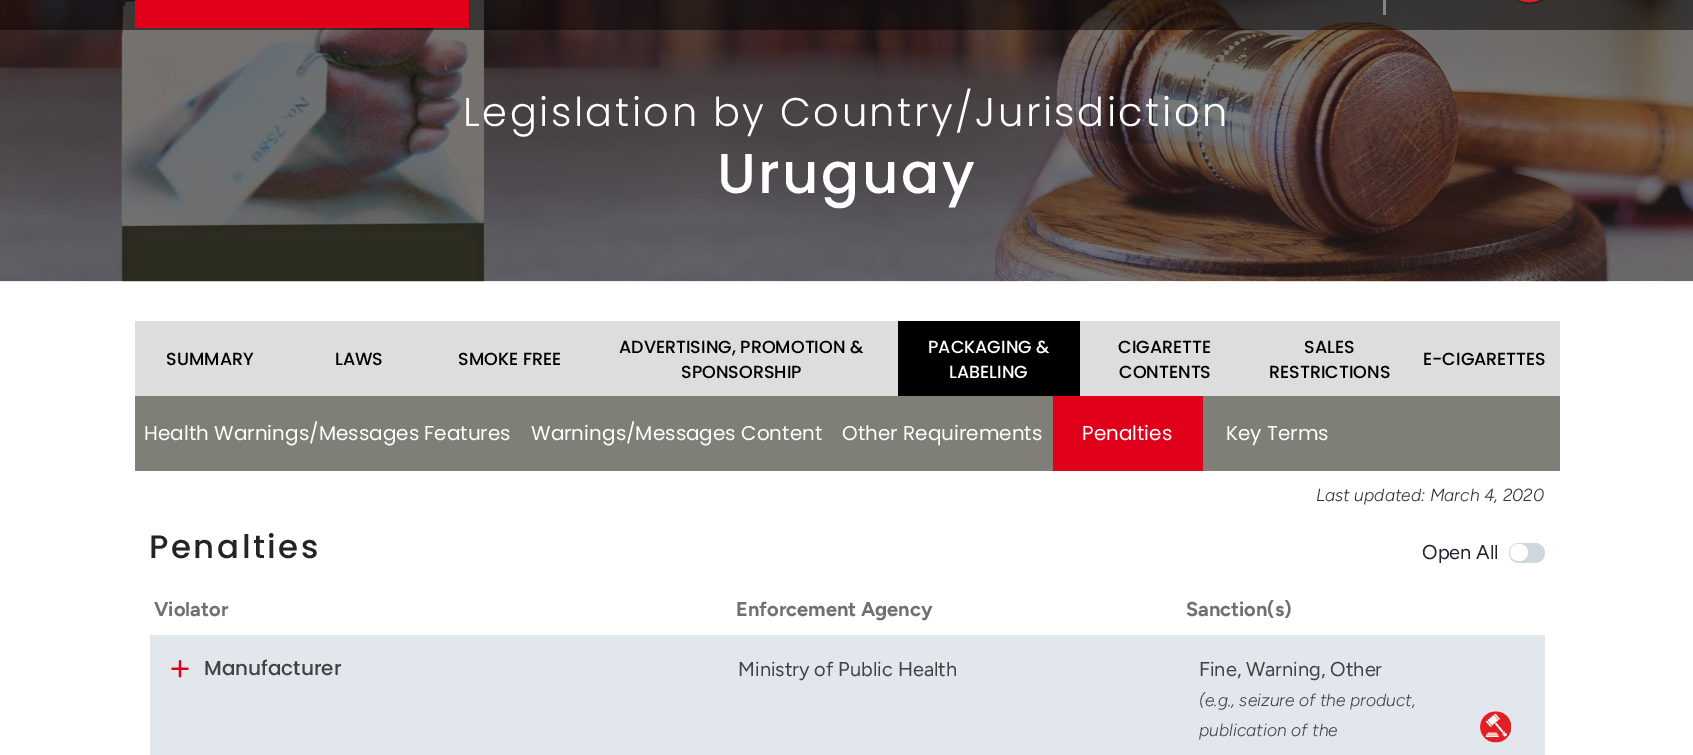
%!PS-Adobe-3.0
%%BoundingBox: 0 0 1693 755
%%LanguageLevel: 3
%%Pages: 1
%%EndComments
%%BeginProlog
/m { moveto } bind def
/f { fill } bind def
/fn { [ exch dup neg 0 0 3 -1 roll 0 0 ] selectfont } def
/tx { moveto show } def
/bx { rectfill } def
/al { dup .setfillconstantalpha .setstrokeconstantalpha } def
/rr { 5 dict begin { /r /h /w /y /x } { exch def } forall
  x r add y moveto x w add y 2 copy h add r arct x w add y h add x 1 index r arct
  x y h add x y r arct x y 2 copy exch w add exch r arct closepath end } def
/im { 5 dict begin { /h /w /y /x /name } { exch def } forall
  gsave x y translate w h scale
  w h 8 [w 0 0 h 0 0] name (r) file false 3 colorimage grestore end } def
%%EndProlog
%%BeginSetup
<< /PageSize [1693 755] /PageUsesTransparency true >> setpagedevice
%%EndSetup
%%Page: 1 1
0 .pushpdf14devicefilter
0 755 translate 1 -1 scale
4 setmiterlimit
1 setgray
0 0 1693 755 bx
(image1.raw) 0 0 1693 282 im
0.5 al
0 setgray
0 0 1693 30 bx
1 al
0.882 0 0.102 setrgbcolor
135 0 334 28 bx
0.188 0.18 0.18 setrgbcolor
469 0 1 30 bx
0.525 0.522 0.522 setrgbcolor
1383 0 3 15 bx
(image0.raw) 1517 0 27 5 im
/Poppins-Light 40 fn
1 setgray
463 126 m 2.5 0 (Legislation by Country/Jurisdiction) ashow
/Poppins-Medium 56.25 fn
717 193 m 2.5 0 (Uruguay) ashow
0.867 setgray
135 321 1425 75 bx
/Poppins-Medium 17.5 fn
0 setgray
(SUMMARY) 166 365 tx
(LAWS) 335 365 tx
(SMOKE FREE) 458 365 tx
(ADVERTISING, PROMOTION &) 619 353 tx
(SPONSORSHIP) 681 378 tx
898 321 182 75 bx
1 setgray
(PACKAGING &) 928 353 tx
(LABELING) 949 378 tx
0 setgray
(CIGARETTE) 1118 353 tx
(CONTENTS) 1119 378 tx
(SALES) 1304 353 tx
(RESTRICTIONS) 1269 378 tx
(E-CIGARETTES) 1423 365 tx
0.498 0.498 0.467 setrgbcolor
135 396 1425 75 bx
/Poppins-Regular 20 fn
1 setgray
(Health Warnings/Messages Features) 144 440 tx
(Warnings/Messages Content) 531 440 tx
(Other Requirements) 842 440 tx
0.882 0 0.102 setrgbcolor
1053 396 150 75 bx
1 setgray
(Penalties) 1082 440 tx
(Key Terms) 1226 440 tx
/Figtree-LightItalic 17.5 fn
0.184 setgray
(Last updated: March 4, 2020) 1316 501 tx
/Poppins-Medium 32.5 fn
0.129 0.145 0.161 setrgbcolor
149 558 m 2.5 0 (Penalties) ashow
/Figtree-Regular 20 fn
(Open All) 1422 559 tx
0.812 0.847 0.863 setrgbcolor
1509 543 36 20 10 rr f
1 setgray
1510 544 18 17 8.5 rr f
/Figtree-Bold 20 fn
0.439 setgray
(Violator) 154 616 tx
(Enforcement Agency) 736 616 tx
(Sanction\(s\)) 1186 616 tx
0.886 0.906 0.929 setrgbcolor
150 635 1395 120 bx
(image2.raw) 171 660 18 18 im
/Poppins-Medium 20 fn
0.259 setgray
(Manufacturer) 204 675 tx
/Figtree-Regular 20 fn
(Ministry of Public Health) 738 676 tx
(Fine, Warning, Other) 1199 676 tx
/Figtree-LightItalic 17.5 fn
(\(e.g., seizure of the product,) 1199 706 tx
(publication of the) 1199 736 tx
(image3.raw) 1480 711 31 32 im
.poppdf14devicefilter showpage
%%EOF
